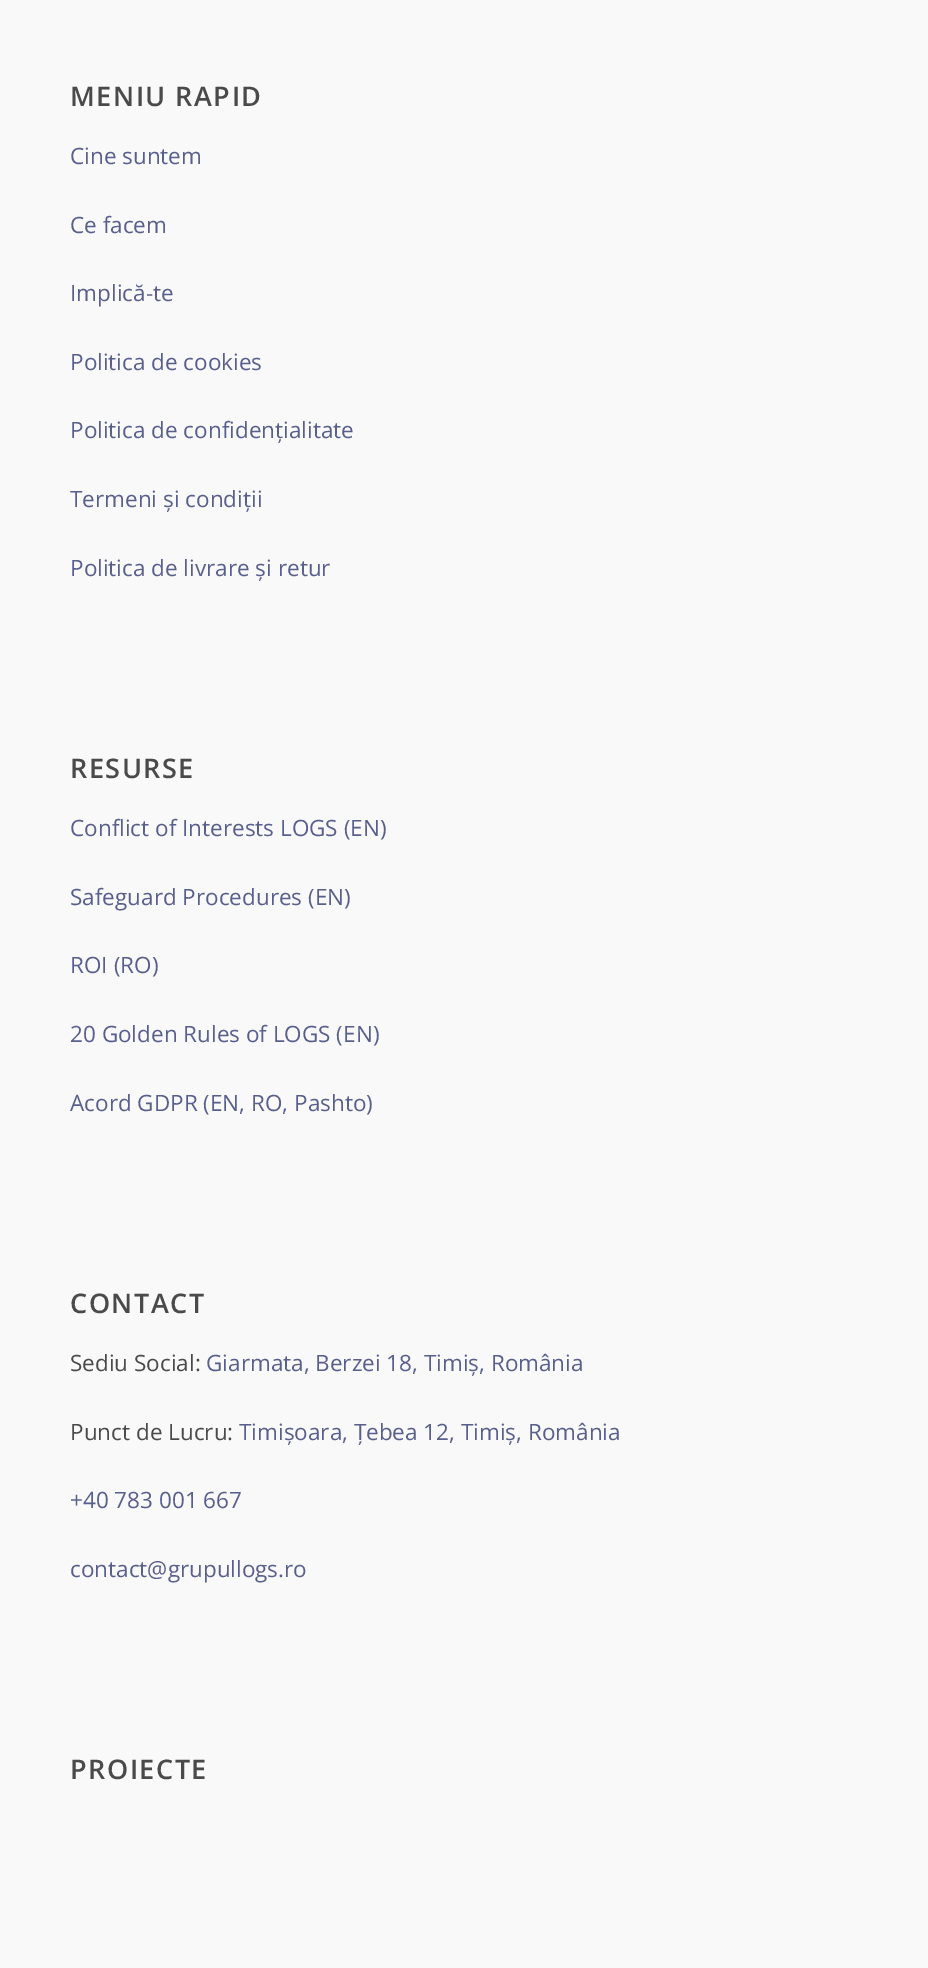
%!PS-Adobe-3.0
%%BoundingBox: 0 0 928 1968
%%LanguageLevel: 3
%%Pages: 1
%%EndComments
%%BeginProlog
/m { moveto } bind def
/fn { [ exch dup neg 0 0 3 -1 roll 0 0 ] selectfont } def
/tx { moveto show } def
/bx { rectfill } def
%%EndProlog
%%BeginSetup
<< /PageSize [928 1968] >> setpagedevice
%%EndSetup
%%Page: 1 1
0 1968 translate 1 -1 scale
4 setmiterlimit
0.976 setgray
0 0 928 1968 bx
/OpenSans-SemiBold 27 fn
0.29 setgray
70 106 m 1.5 0 (MENIU RAPID) ashow
/OpenSans-Regular 22.5 fn
0.349 0.373 0.553 setrgbcolor
(Cine suntem) 70 164 tx
(Ce facem) 70 233 tx
(Implică-te) 70 301 tx
(Politica de cookies) 70 370 tx
(Politica de confidențialitate) 70 438 tx
(Termeni și condiții) 70 507 tx
(Politica de livrare și retur) 70 576 tx
/OpenSans-SemiBold 27 fn
0.29 setgray
70 778 m 1.5 0 (RESURSE) ashow
/OpenSans-Regular 22.5 fn
0.349 0.373 0.553 setrgbcolor
(Conflict of Interests LOGS \(EN\)) 70 836 tx
(Safeguard Procedures \(EN\)) 70 905 tx
(ROI \(RO\)) 70 973 tx
(20 Golden Rules of LOGS \(EN\)) 70 1042 tx
(Acord GDPR \(EN, RO, Pashto\)) 70 1111 tx
/OpenSans-SemiBold 27 fn
0.29 setgray
70 1313 m 1.5 0 (CONTACT) ashow
/OpenSans-Regular 22.5 fn
(Sediu Social:) 70 1371 tx
0.349 0.373 0.553 setrgbcolor
(Giarmata, Berzei 18, Timiș, România) 206 1371 tx
0.29 setgray
(Punct de Lucru:) 70 1440 tx
0.349 0.373 0.553 setrgbcolor
(Timișoara, Țebea 12, Timiș, România) 239 1440 tx
(+40 783 001 667) 70 1508 tx
(contact@grupullogs.ro) 70 1577 tx
/OpenSans-SemiBold 27 fn
0.29 setgray
70 1779 m 1.5 0 (PROIECTE) ashow
showpage
%%EOF
